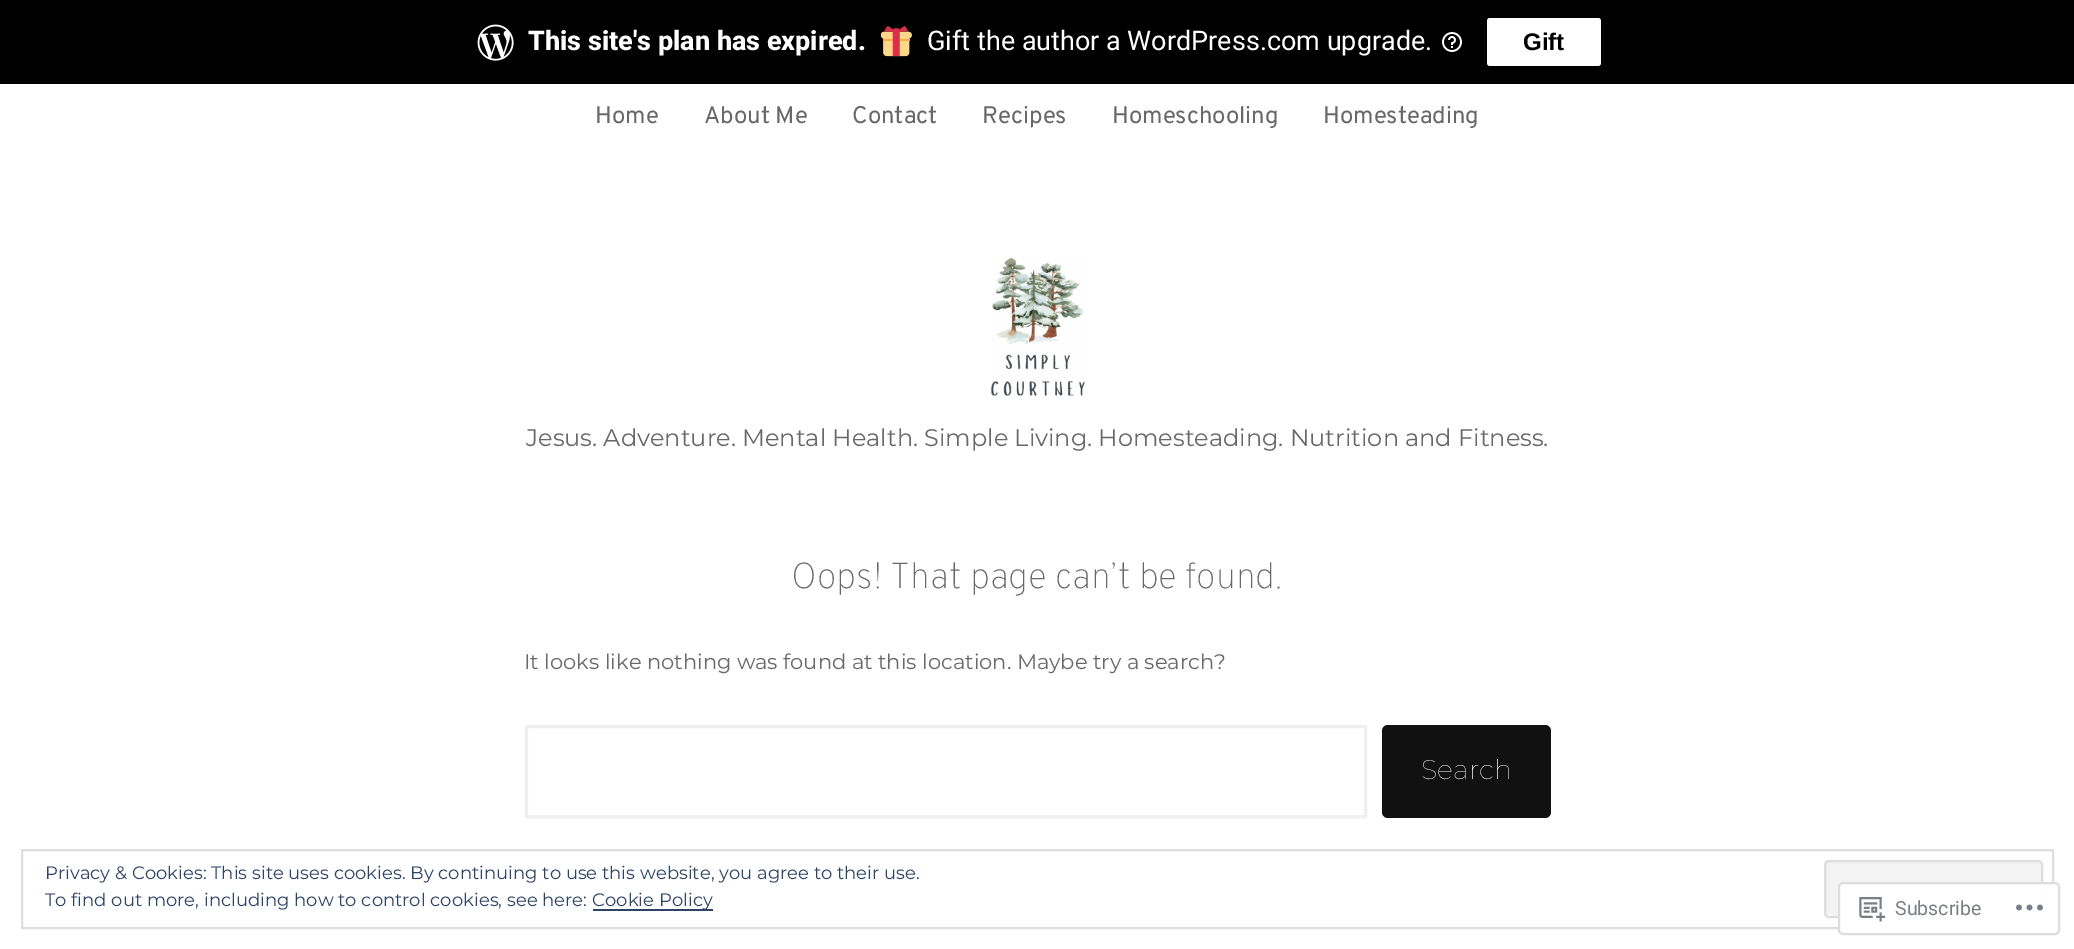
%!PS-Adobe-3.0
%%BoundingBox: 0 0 2074 949
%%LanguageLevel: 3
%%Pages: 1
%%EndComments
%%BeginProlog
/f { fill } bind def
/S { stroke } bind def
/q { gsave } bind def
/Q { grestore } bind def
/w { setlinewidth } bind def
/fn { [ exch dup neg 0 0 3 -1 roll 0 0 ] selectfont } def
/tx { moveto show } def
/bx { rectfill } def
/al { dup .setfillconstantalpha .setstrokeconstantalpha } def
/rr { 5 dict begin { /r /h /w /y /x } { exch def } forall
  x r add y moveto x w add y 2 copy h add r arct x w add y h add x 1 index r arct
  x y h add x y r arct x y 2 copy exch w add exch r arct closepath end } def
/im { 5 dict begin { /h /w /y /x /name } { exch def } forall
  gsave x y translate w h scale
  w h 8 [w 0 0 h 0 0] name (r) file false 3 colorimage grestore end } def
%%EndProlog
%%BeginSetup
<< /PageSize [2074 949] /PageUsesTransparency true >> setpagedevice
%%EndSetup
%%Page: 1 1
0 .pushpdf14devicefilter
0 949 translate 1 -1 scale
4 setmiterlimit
1 setgray
0 0 2074 949 bx
0 setgray
0 0 2074 84 bx
(image0.raw) 477 24 37 37 im
/Roboto-ExtraBold 27 fn
1 setgray
(This site's plan has expired.) 528 50 tx
(image1.raw) 881 26 31 31 im
/Roboto-Regular 27 fn
(Gift the author a WordPress.com upgrade.) 927 50 tx
(image2.raw) 1442 32 20 20 im
1487 18 114 48 3 rr f
/LiberationSans-Bold 24 fn
0 setgray
(Gift) 1523 50 tx
/Overpass-Regular 24 fn
0.408 setgray
(Home) 595 123 tx
(About Me) 704 123 tx
(Contact) 852 123 tx
(Recipes) 982 123 tx
(Homeschooling) 1112 123 tx
(Homesteading) 1323 123 tx
(image3.raw) 991 257 94 139 im
/Montserrat-Regular 24 fn
(Jesus. Adventure. Mental Health. Simple Living. Homesteading. Nutrition and Fitness.) 526 446 tx
/Overpass-Thin 36 fn
(Oops! That page can’t be found.) 791 588 tx
/Montserrat-Regular 21 fn
(It looks like nothing was found at this location. Maybe try a search?) 524 669 tx
0.937 setgray
3 w
526.5 726.5 839 90 rectstroke
0.067 setgray
1382 725 169 93 6 rr f
/Montserrat-Thin 27 fn
1 setgray
(Search) 1421 779 tx
0.871 setgray
2 w
22 850 2031 78 rectstroke
/Montserrat-Regular 18 fn
0.18 0.267 0.404 setrgbcolor
(Privacy & Cookies: This site uses cookies. By continuing to use this website, you agree to their use.) 45 879 tx
0.953 setgray
1825 861 217 56 4 rr q f Q
0.871 setgray
S
0.18 0.267 0.404 setrgbcolor
(To find out more, including how to control cookies, see here:) 45 906 tx
593 909 120 2 bx
(Cookie Policy) 592 906 tx
0.98 al
1 setgray
1838 882 222 53 5 rr f
0.863 0.863 0.871 setrgbcolor
1839 883 220 51 4 rr S
1 al
(image4.raw) 1859 897 27 25 im
/Roboto-Regular 19.5 fn
0.478 0.494 0.518 setrgbcolor
(Subscribe) 1895 915 tx
(image5.raw) 2016 904 27 7 im
.poppdf14devicefilter showpage
%%EOF
